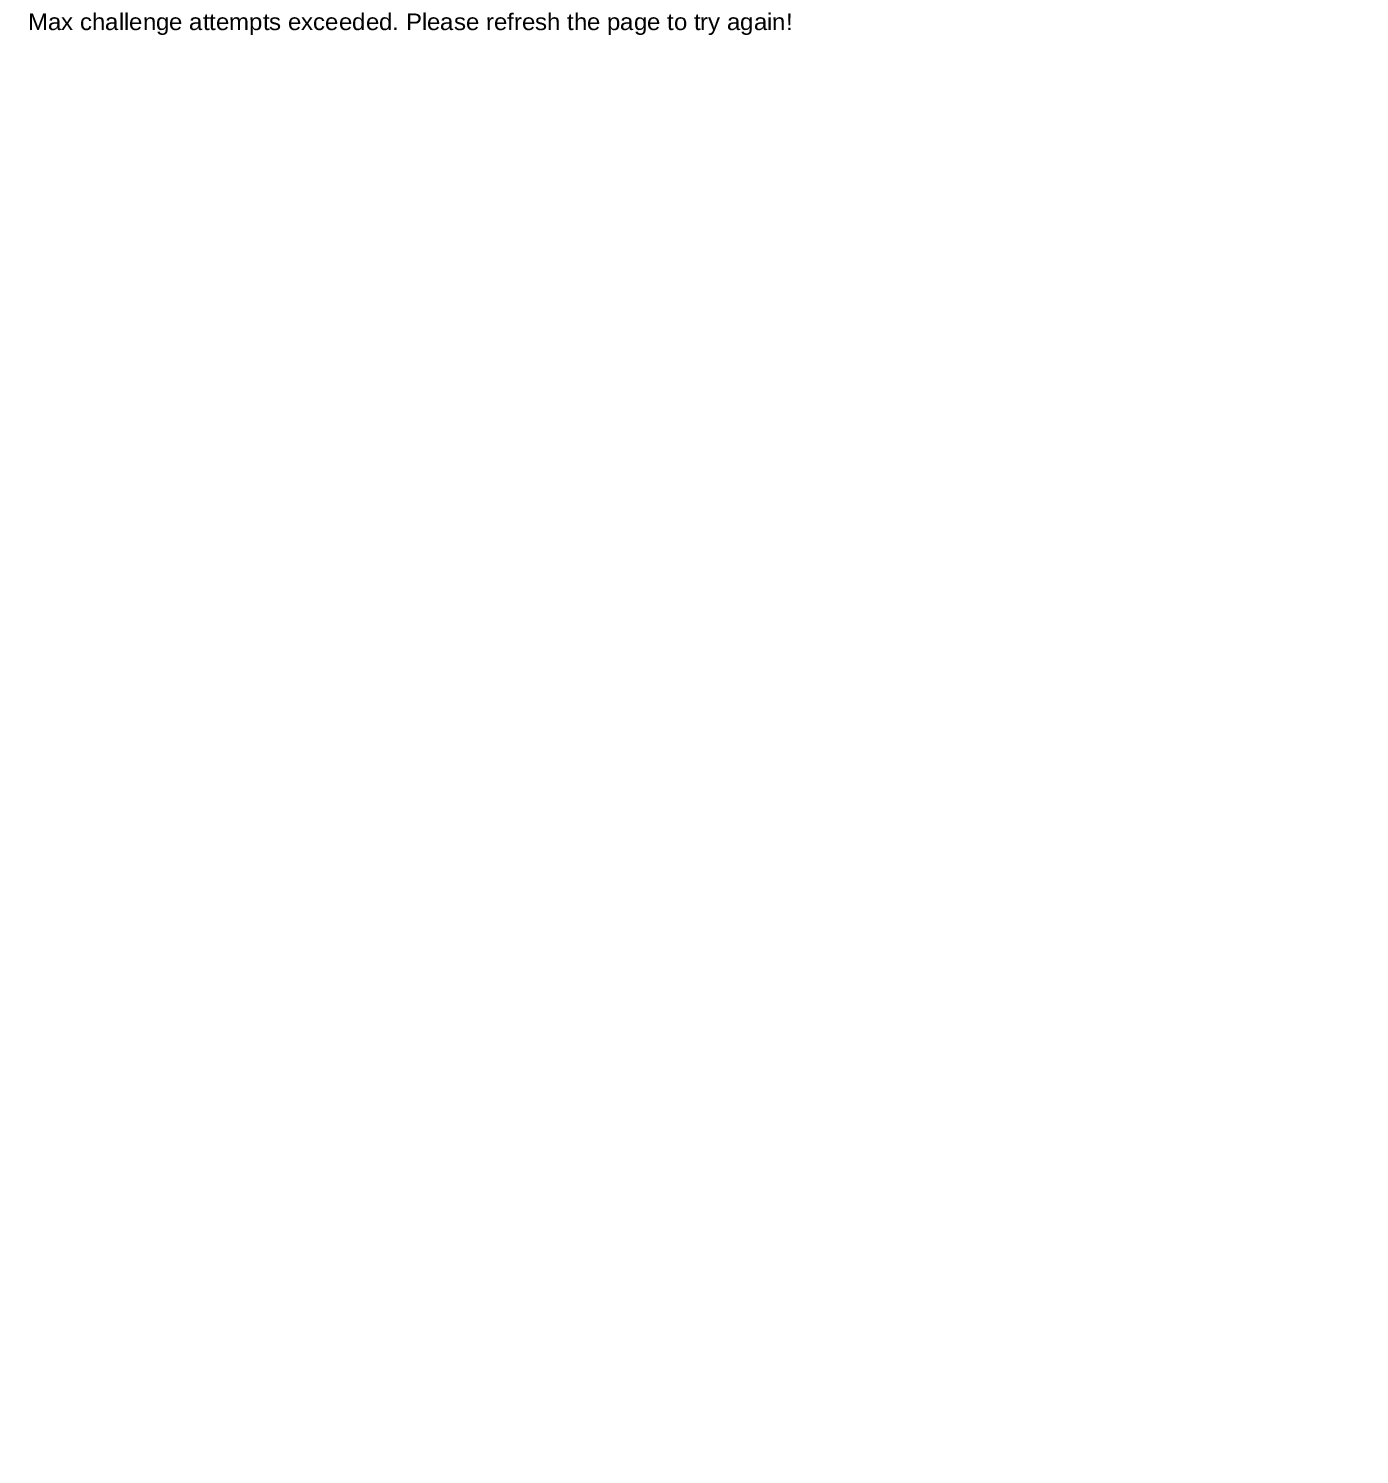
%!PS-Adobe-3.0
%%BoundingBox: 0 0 1388 1483
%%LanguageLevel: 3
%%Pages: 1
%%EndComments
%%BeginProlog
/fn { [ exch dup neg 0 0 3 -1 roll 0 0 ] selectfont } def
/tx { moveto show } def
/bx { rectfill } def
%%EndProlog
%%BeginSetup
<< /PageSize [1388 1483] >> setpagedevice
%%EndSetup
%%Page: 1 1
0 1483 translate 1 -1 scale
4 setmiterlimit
1 setgray
0 0 1388 1483 bx
/LiberationSans-Regular 24 fn
0 setgray
(Max challenge attempts exceeded. Please refresh the page to try again!) 28 30 tx
showpage
%%EOF
